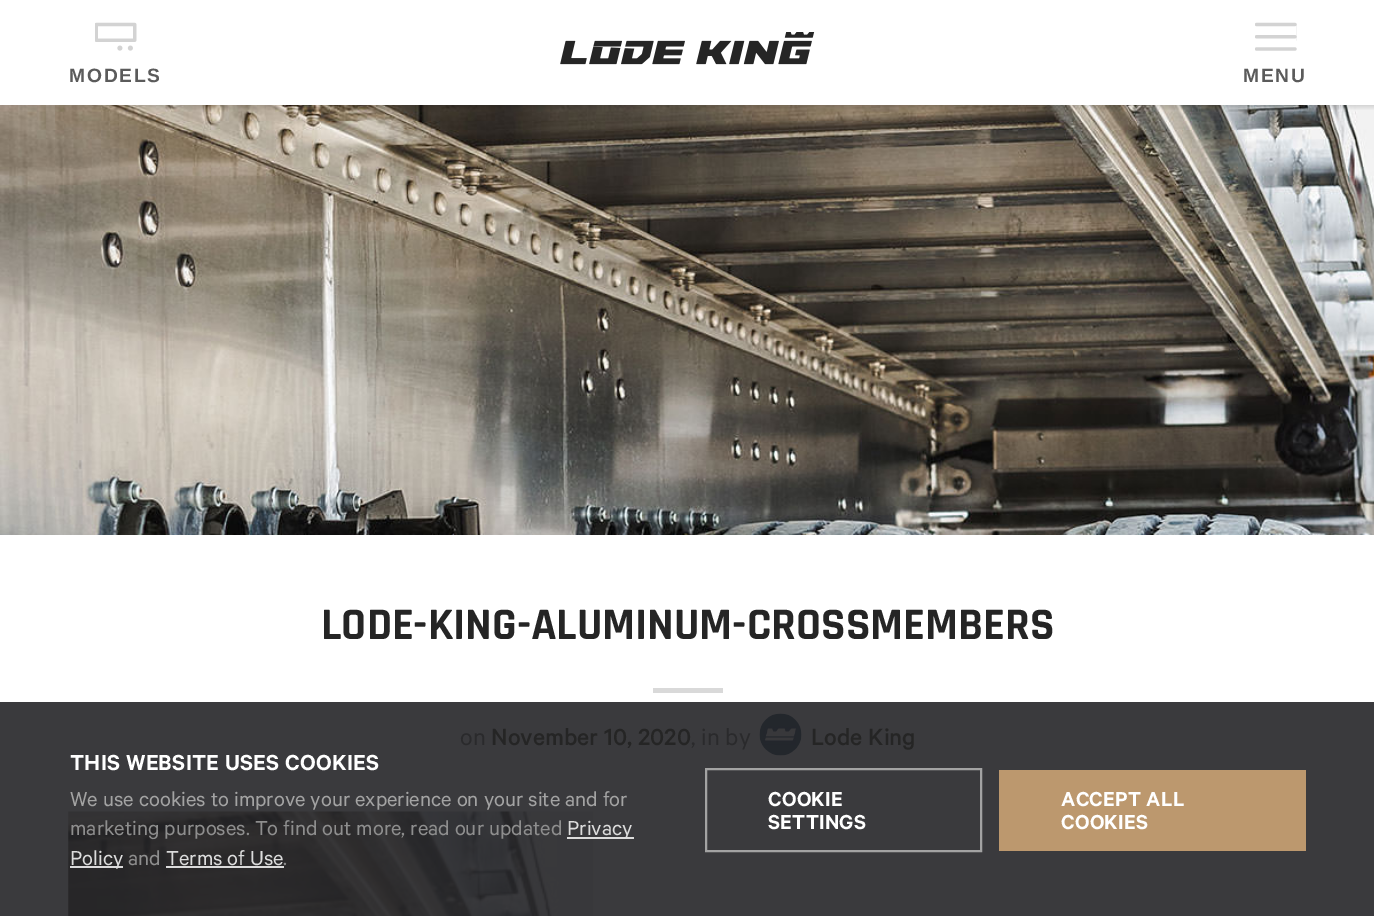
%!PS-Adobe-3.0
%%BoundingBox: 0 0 1374 916
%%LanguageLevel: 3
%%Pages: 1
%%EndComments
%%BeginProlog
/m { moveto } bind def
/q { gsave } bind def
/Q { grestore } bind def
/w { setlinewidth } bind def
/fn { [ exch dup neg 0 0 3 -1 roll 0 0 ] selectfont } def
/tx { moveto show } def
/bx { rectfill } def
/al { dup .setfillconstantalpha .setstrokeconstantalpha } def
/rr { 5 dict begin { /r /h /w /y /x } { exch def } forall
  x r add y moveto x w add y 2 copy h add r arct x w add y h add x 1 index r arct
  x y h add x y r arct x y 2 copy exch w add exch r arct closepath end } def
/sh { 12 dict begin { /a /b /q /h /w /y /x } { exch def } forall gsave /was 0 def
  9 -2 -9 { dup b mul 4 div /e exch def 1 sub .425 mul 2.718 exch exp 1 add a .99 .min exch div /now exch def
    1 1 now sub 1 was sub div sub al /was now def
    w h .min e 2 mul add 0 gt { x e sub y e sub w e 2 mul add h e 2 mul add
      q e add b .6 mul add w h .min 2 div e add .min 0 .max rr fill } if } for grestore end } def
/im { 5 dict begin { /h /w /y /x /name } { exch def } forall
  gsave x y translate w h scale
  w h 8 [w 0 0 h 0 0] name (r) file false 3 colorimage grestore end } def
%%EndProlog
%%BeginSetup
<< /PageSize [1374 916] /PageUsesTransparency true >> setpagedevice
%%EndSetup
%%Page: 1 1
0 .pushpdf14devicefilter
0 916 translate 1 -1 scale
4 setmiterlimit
1 setgray
0 0 1374 916 bx
0.227 0.227 0.239 setrgbcolor
0 702 1374 214 bx
(image3.raw) 0 105 1374 430 im
q
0 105 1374 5 rectclip
0 setgray
0 2 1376 105 0 2.5 0.15 sh
Q
(image0.raw) 560 32 255 33 im
(image1.raw) 95 22 42 29 im
/LiberationSans-Bold 19.25 fn
0.357 setgray
69 82 m 1.75 0 (MODELS) ashow
(image2.raw) 1255 22 42 29 im
1243 82 m 1.75 0 (MENU) ashow
/Rajdhani-Bold 45.5 fn
0.145 setgray
(LODE-KING-ALUMINUM-CROSSMEMBERS) 321 639 tx
0.851 setgray
653 688 70 5 bx
/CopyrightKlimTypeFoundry-Regular 26.25 fn
0.165 0.165 0.173 setrgbcolor
(on) 460 745 tx
/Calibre-Medium 26.25 fn
0.145 setgray
(November 10, 2020) 491 745 tx
/CopyrightKlimTypeFoundry-Regular 26.25 fn
0.165 0.165 0.173 setrgbcolor
(, in by) 691 745 tx
(image4.raw) 759 713 43 43 im
/Calibre-Medium 26.25 fn
0.145 setgray
(Lode King) 811 745 tx
(image5.raw) 68 811 526 105 im
/Calibre-SemiBold 24.5 fn
1 setgray
70 770 m 0.3 0 (THIS WEBSITE USES COOKIES) ashow
/CopyrightKlimTypeFoundry-Regular 22.75 fn
0.639 setgray
(We use cookies to improve your experience on your site and for) 70 806 tx
0.557 setgray
(marketing purposes. To find out more, read our updated) 70 835 tx
0.863 setgray
567 837 67 2 bx
(Privacy) 567 835 tx
0.9 al
0.933 setgray
70 866 53 2 bx
1 al
0.863 setgray
(Policy) 70 865 tx
0.557 setgray
(and) 128 865 tx
0.863 setgray
(Terms of Use) 166 865 tx
0.9 al
0.933 setgray
166 866 118 2 bx
1 al
0.557 setgray
(.) 283 865 tx
0.639 setgray
2 w
706 769 275 82 rectstroke
/Calibre-SemiBold 22.75 fn
1 setgray
768 806 m 0.25 0 (COOKIE) ashow
768 829 m 0.25 0 (SETTINGS) ashow
0.737 0.596 0.431 setrgbcolor
999 770 307 81 bx
1 setgray
1061 806 m 0.25 0 (ACCEPT ALL) ashow
1061 829 m 0.25 0 (COOKIES) ashow
.poppdf14devicefilter showpage
%%EOF
